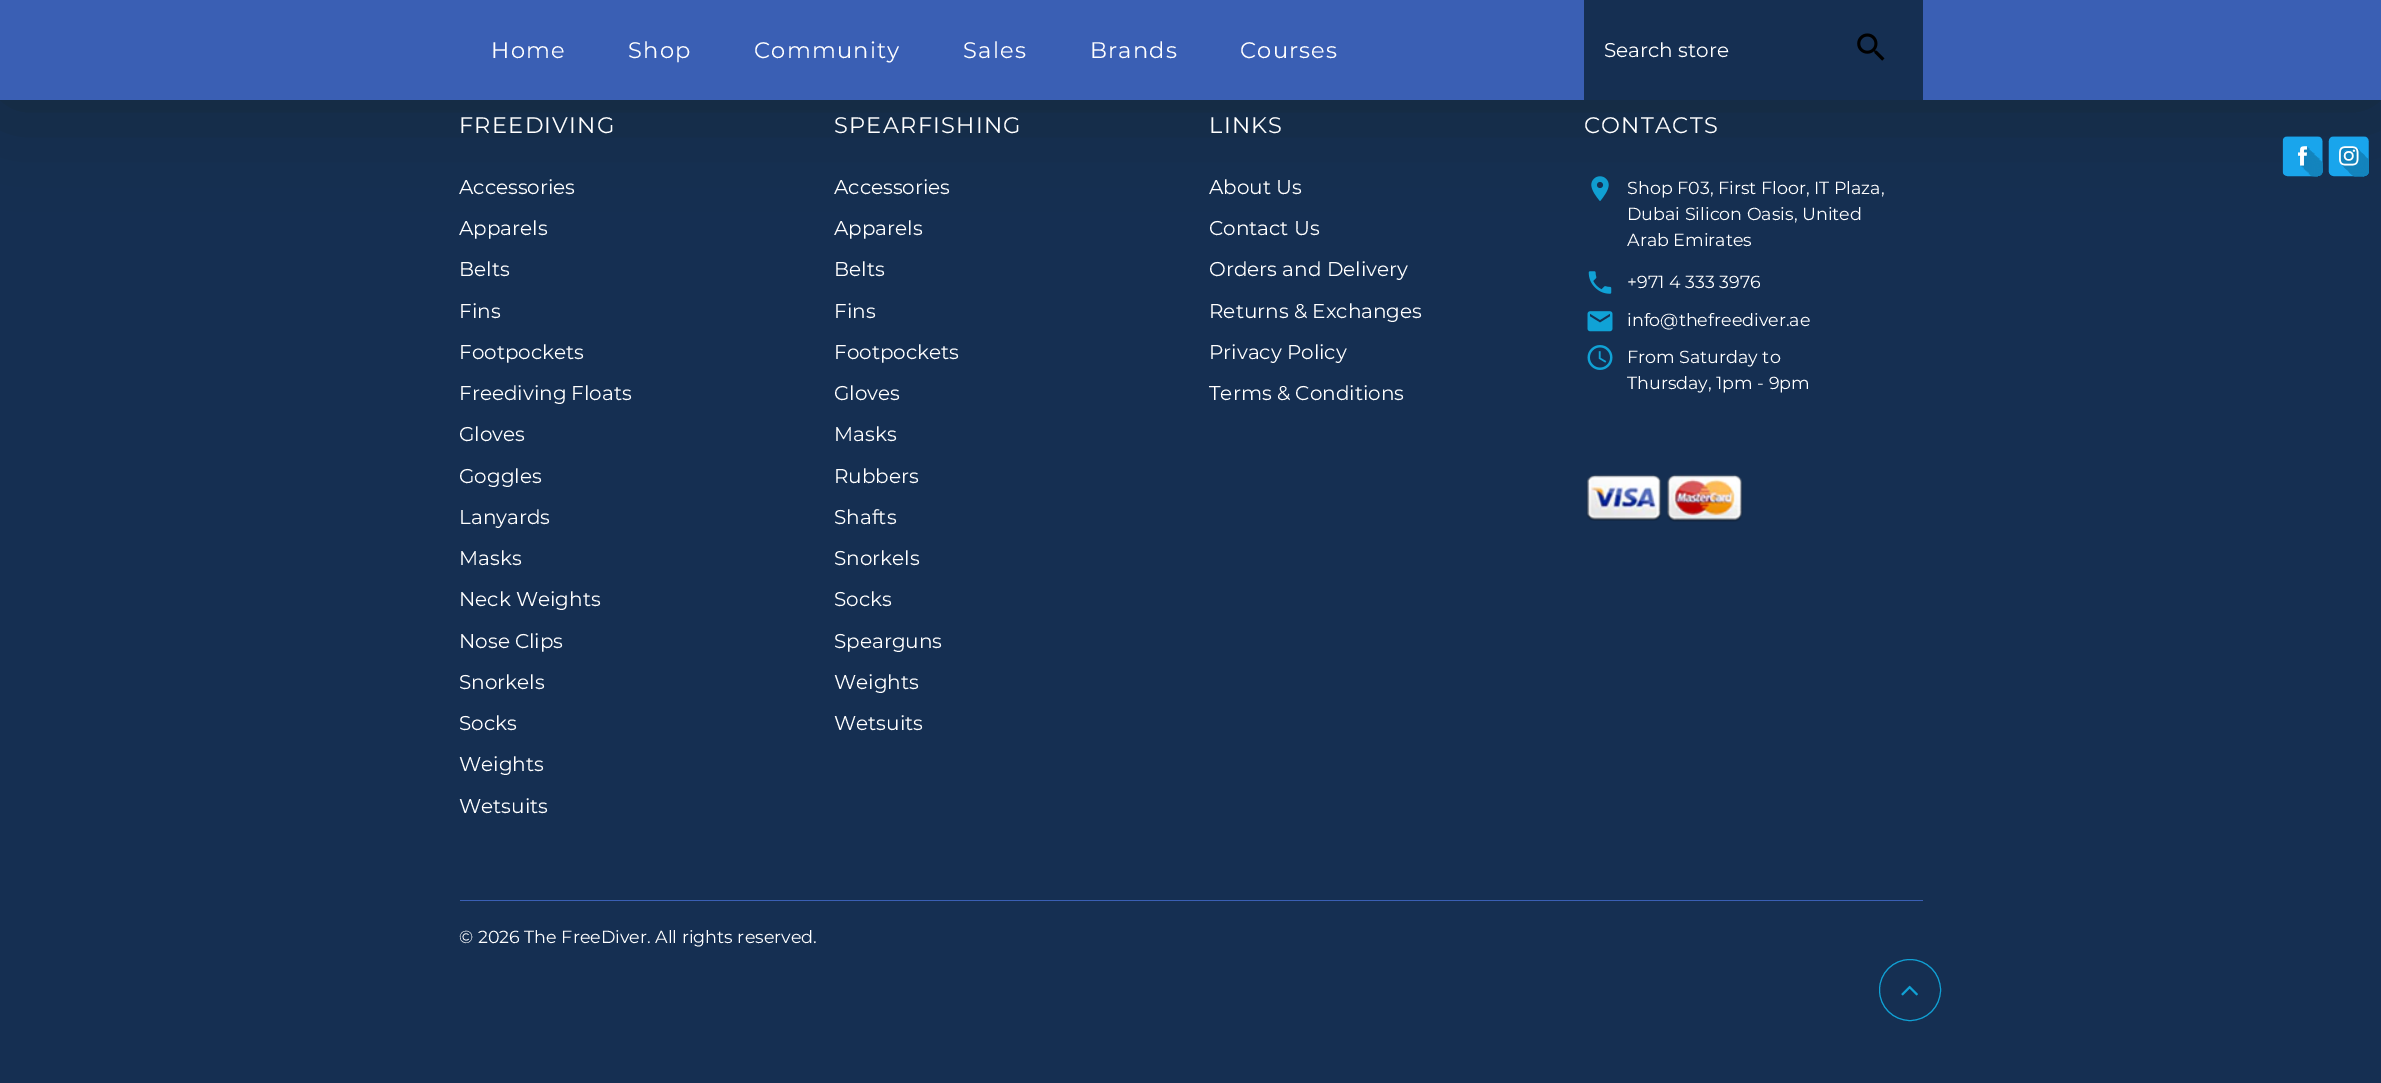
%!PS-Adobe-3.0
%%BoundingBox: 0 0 2381 1083
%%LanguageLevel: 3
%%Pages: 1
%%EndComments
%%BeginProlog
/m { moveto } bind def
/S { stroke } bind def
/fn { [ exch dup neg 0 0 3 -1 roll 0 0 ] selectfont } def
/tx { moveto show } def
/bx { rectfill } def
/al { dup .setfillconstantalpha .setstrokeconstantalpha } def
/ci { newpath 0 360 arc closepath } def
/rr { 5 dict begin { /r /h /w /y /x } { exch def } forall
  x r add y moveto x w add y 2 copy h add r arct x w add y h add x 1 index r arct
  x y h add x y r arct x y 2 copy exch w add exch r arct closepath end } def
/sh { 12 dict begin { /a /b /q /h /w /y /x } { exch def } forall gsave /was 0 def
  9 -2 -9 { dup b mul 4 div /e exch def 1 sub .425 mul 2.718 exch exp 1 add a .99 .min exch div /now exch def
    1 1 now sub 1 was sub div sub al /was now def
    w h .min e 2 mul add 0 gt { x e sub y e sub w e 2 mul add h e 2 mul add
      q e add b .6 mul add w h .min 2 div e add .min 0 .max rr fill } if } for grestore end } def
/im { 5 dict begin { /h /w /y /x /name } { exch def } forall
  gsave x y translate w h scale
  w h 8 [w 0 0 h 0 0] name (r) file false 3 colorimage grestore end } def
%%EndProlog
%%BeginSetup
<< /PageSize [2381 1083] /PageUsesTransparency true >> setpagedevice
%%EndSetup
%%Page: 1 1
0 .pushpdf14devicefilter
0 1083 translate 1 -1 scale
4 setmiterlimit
0.082 0.184 0.322 setrgbcolor
0 0 2381 1083 bx
(image1.raw) 1591 176 18 25 im
0.094 0.125 0.09 setrgbcolor
0 0 2381 100 0 50 0.45 sh
0.227 0.373 0.706 setrgbcolor
0 0 2381 100 bx
/Montserrat-Regular 22.5 fn
1 setgray
491 58 m 1.25 0 (Home) ashow
628 58 m 1.25 0 (Shop) ashow
754 58 m 1.25 0 (Community) ashow
963 58 m 1.25 0 (Sales) ashow
1090 58 m 1.25 0 (Brands) ashow
1240 58 m 1.25 0 (Courses) ashow
0.082 0.184 0.322 setrgbcolor
1584 0 339 100 bx
/Montserrat-Regular 20 fn
1 setgray
(Search store) 1604 57 tx
(image0.raw) 1857 33 28 28 im
/Montserrat-Regular 22.5 fn
459 133 m 1.25 0 (FREEDIVING) ashow
/Montserrat-Regular 20 fn
(Accessories) 459 194 tx
(Apparels) 459 235 tx
(Belts) 459 276 tx
(Fins) 459 318 tx
(Footpockets) 459 359 tx
(Freediving Floats) 459 400 tx
(Gloves) 459 441 tx
(Goggles) 459 483 tx
(Lanyards) 459 524 tx
(Masks) 459 565 tx
(Neck Weights) 459 606 tx
(Nose Clips) 459 648 tx
(Snorkels) 459 689 tx
(Socks) 459 730 tx
(Weights) 459 771 tx
(Wetsuits) 459 813 tx
/Montserrat-Regular 22.5 fn
834 133 m 1.25 0 (SPEARFISHING) ashow
/Montserrat-Regular 20 fn
(Accessories) 834 194 tx
(Apparels) 834 235 tx
(Belts) 834 276 tx
(Fins) 834 318 tx
(Footpockets) 834 359 tx
(Gloves) 834 400 tx
(Masks) 834 441 tx
(Rubbers) 834 483 tx
(Shafts) 834 524 tx
(Snorkels) 834 565 tx
(Socks) 834 606 tx
(Spearguns) 834 648 tx
(Weights) 834 689 tx
(Wetsuits) 834 730 tx
/Montserrat-Regular 22.5 fn
1209 133 m 1.25 0 (LINKS) ashow
/Montserrat-Regular 20 fn
(About Us) 1209 194 tx
(Contact Us) 1209 235 tx
(Orders and Delivery) 1209 276 tx
(Returns & Exchanges) 1209 318 tx
(Privacy Policy) 1209 359 tx
(Terms & Conditions) 1209 400 tx
/Montserrat-Regular 22.5 fn
1584 133 m 1.25 0 (CONTACTS) ashow
/Montserrat-Regular 17.5 fn
(Shop F03, First Floor, IT Plaza,) 1627 194 tx
(Dubai Silicon Oasis, United) 1627 220 tx
(Arab Emirates) 1627 246 tx
(image2.raw) 1588 271 24 23 im
(+971 4 333 3976) 1627 288 tx
(image3.raw) 1587 311 26 21 im
(info@thefreediver.ae) 1627 326 tx
(image4.raw) 1587 345 26 25 im
(From Saturday to) 1627 363 tx
(Thursday, 1pm - 9pm) 1627 389 tx
(image5.raw) 1586 474 76 47 im
(image6.raw) 1667 474 76 48 im
0.227 0.373 0.706 setrgbcolor
460 900 1463 1 bx
1 setgray
(© 2026 The FreeDiver. All rights reserved.) 459 943 tx
(image7.raw) 2282 136 87 41 im
0.063 0.631 0.835 setrgbcolor
1910 990 30.5 ci S
(image8.raw) 1901 985 17 11 im
.poppdf14devicefilter showpage
%%EOF
